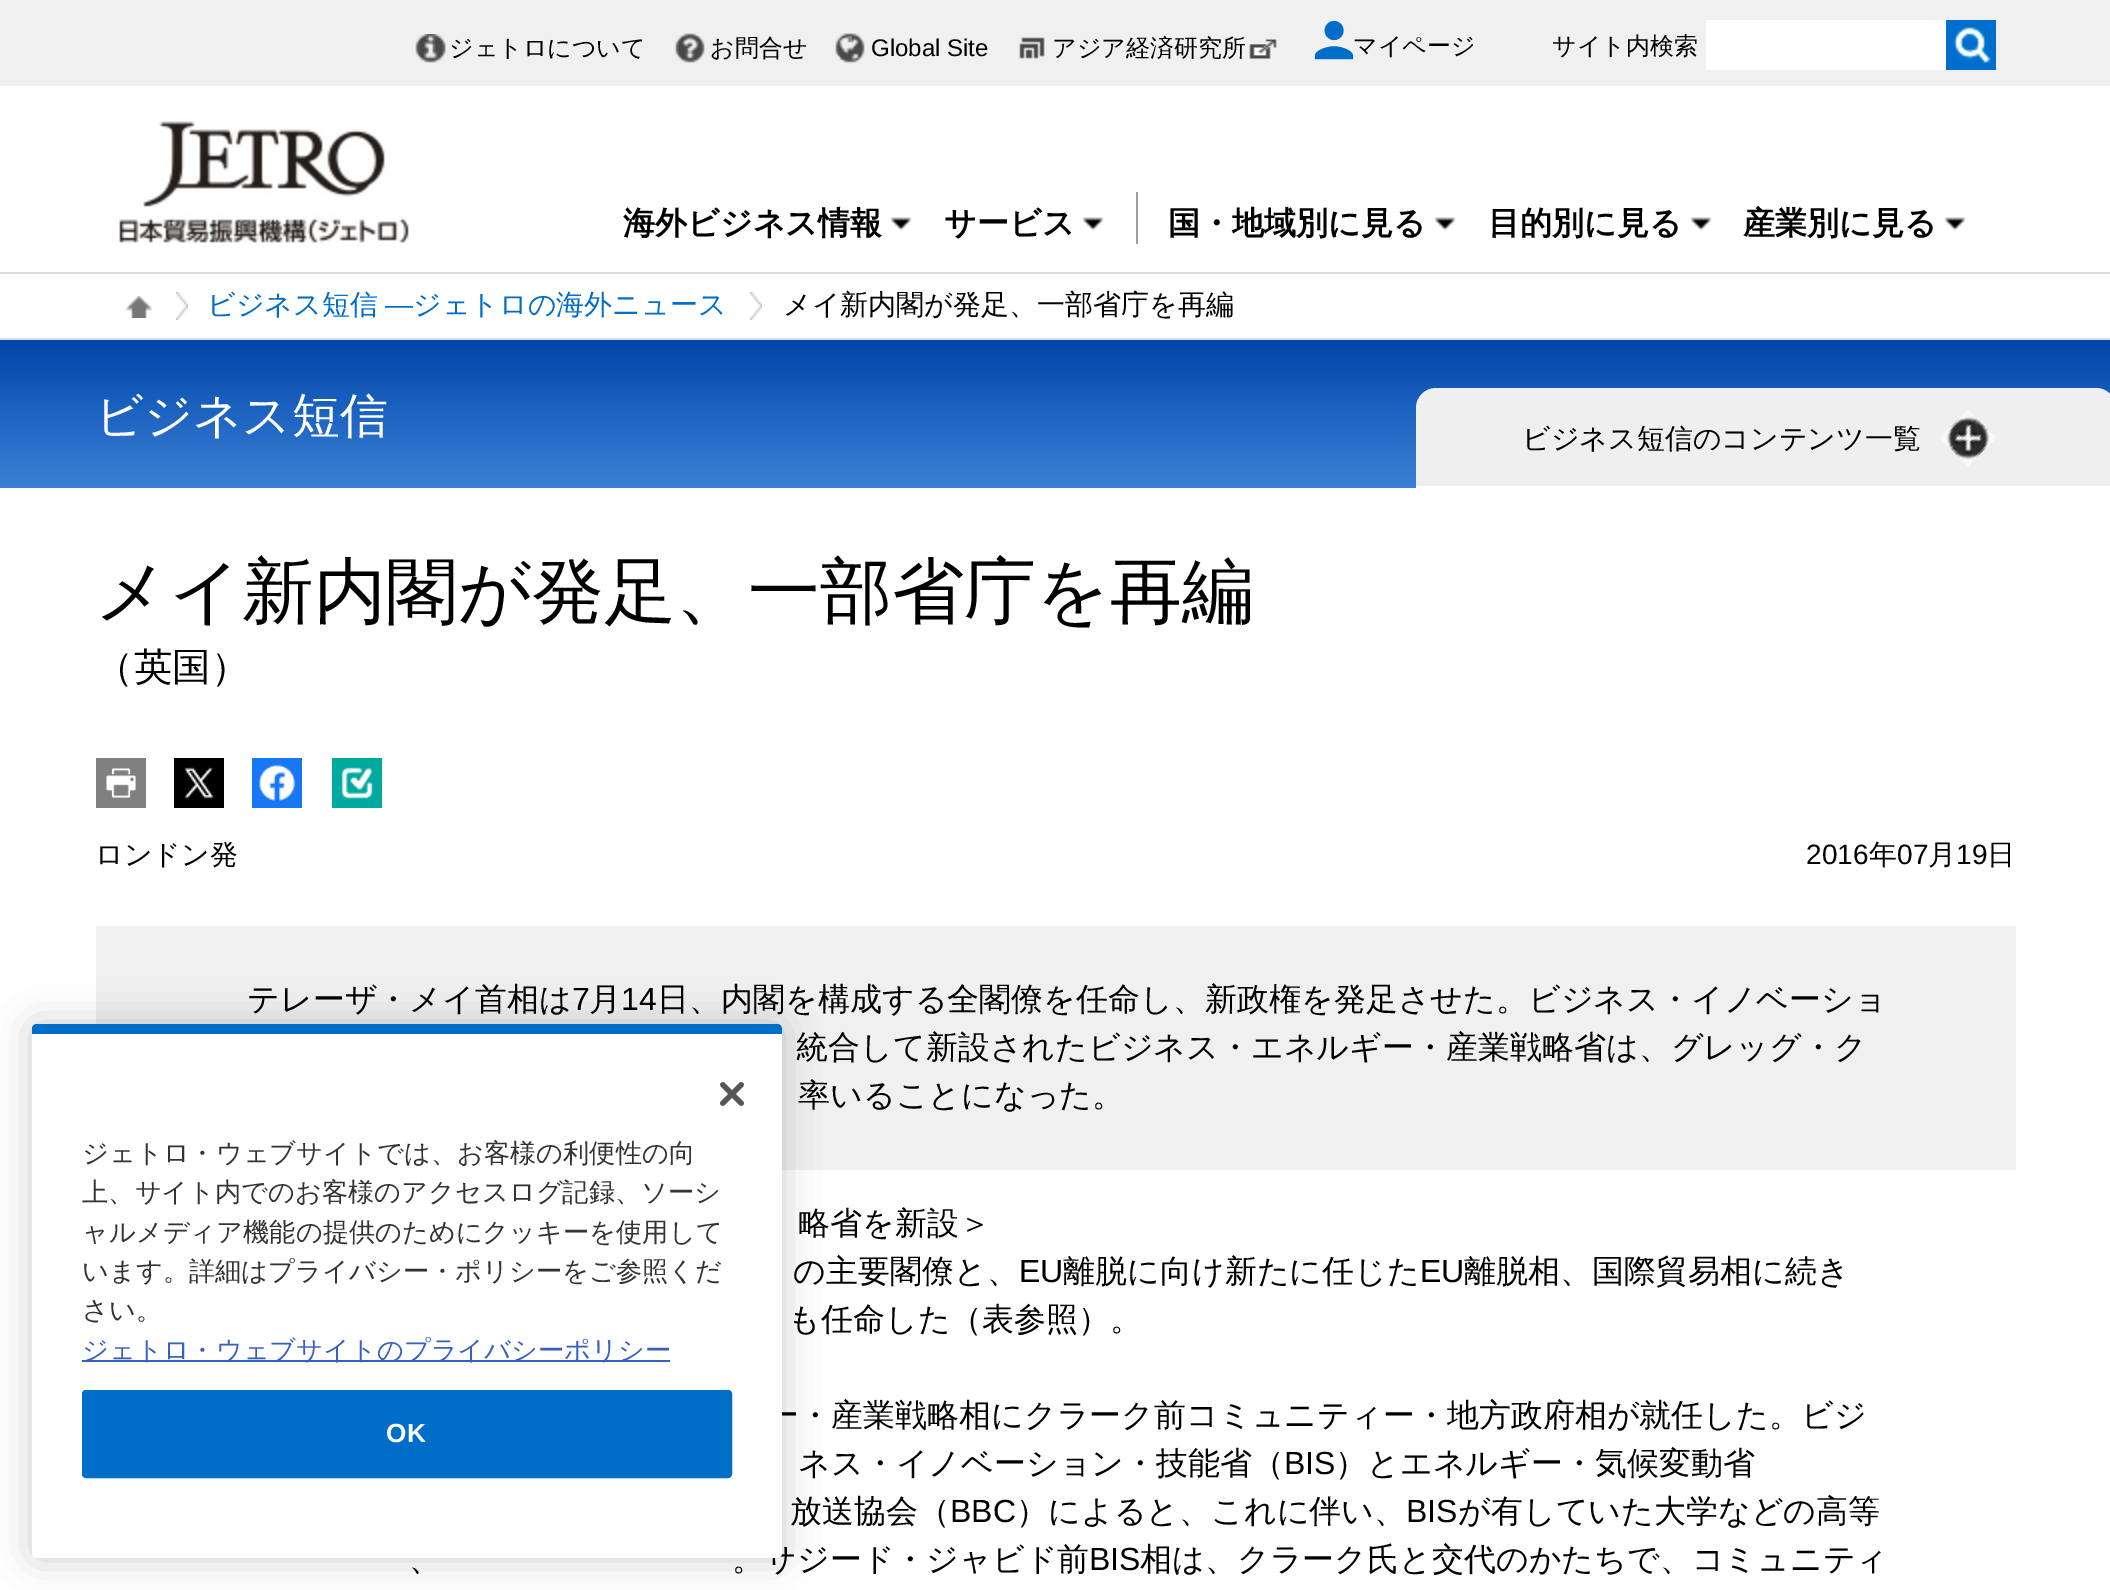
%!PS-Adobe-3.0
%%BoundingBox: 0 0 2110 1590
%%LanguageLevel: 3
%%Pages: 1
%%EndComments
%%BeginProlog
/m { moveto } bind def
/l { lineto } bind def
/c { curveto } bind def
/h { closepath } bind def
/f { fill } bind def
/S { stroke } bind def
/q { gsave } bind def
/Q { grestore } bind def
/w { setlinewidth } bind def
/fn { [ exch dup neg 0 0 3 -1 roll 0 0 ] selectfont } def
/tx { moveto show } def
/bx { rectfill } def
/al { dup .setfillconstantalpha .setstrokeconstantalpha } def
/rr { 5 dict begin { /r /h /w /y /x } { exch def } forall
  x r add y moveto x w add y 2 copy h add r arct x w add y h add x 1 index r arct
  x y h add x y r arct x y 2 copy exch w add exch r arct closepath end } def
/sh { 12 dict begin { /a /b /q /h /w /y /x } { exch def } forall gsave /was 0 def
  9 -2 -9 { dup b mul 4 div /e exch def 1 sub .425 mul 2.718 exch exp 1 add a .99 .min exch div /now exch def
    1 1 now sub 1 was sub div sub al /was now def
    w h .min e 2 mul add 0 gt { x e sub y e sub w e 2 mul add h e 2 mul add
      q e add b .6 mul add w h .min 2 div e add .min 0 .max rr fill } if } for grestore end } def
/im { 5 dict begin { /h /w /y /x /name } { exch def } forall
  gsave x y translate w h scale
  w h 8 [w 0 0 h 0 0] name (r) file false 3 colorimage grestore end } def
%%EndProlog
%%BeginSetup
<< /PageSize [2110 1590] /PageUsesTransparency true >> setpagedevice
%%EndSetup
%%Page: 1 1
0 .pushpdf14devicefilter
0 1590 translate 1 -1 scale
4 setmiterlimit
1 setgray
0 0 2110 1590 bx
0.941 setgray
0 0 2110 86 bx
(image0.raw) 415 34 31 29 im
/WenQuanYiZenHei-Medium 24 fn
0 setgray
(ジェトロについて) 449 56 tx
(image1.raw) 675 33 30 30 im
(お問合せ) 710 56 tx
(image2.raw) 835 33 30 30 im
/LiberationSans-Regular 24 fn
(Global Site) 871 56 tx
(image3.raw) 1019 37 26 22 im
/WenQuanYiZenHei-Medium 24 fn
(アジア経済研究所) 1052 56 tx
(image4.raw) 1249 39 28 20 im
(image5.raw) 1314 20 40 40 im
(マイページ) 1353 54 tx
(サイト内検索) 1552 54 tx
1 setgray
1706 20 240 50 bx
(image6.raw) 1946 20 50 50 im
(image7.raw) 119 121 290 122 im
/WenQuanYiZenHei-Bold 32 fn
0 setgray
(海外ビジネス情報) 623 234 tx
(image8.raw) 889 217 24 14 im
0.624 setgray
1136 192 2 52 bx
0 setgray
(サービス) 944 234 tx
(image8.raw) 1081 217 24 14 im
(国・地域別に見る) 1168 234 tx
(image8.raw) 1433 217 24 14 im
(目的別に見る) 1488 234 tx
(image8.raw) 1689 217 24 14 im
(産業別に見る) 1743 234 tx
(image8.raw) 1943 217 24 14 im
0.863 setgray
0 272 2110 2 bx
0 338 2110 2 bx
(image9.raw) 176 292 12 28 im
(image10.raw) 126 296 26 22 im
(image9.raw) 750 292 12 28 im
/WenQuanYiZenHei-Medium 28 fn
0 0.431 0.784 setrgbcolor
(ビジネス短信) 207 314 tx
/LiberationSans-Regular 28 fn
(―) 385 314 tx
/WenQuanYiZenHei-Medium 28 fn
(ジェトロの海外ニュース) 413 314 tx
0 setgray
(メイ新内閣が発足、一部省庁を再編) 783 314 tx
q 0 340 m 2110 340 l 2110 488 l 0 488 l h clip newpath
<< /ShadingType 2 /ColorSpace /DeviceRGB /Coords [1055 340 1055 488] /Extend [true true] /Function << /FunctionType 2 /Domain [0 1] /C0 [0 0.275 0.667] /C1 [0.231 0.506 0.839] /N 1 >> >> shfill Q
/WenQuanYiZenHei-Medium 48 fn
1 setgray
(ビジネス短信) 95 432 tx
0.941 0.937 0.941 setrgbcolor
1436 388 m 2096 388 l 2107 388 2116 397 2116 408 c 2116 488 l 1416 488 l 1416 408 l 1416 397 1425 388 1436 388 c h f
1 setgray
1416 486 694 2 bx
/WenQuanYiZenHei-Medium 28 fn
0 setgray
(ビジネス短信のコンテンツ一覧) 1522 448 tx
(image11.raw) 1940 410 56 56 im
/WenQuanYiZenHei-Medium 72 fn
(メイ新内閣が発足、一部省庁を再編) 95 616 tx
/WenQuanYiZenHei-Medium 38.5 fn
(（英国）) 95 680 tx
(image12.raw) 96 758 50 50 im
(image13.raw) 174 758 50 50 im
(image14.raw) 252 758 50 50 im
(image15.raw) 332 758 50 50 im
/WenQuanYiZenHei-Medium 28 fn
(ロンドン発) 95 864 tx
/LiberationSans-Regular 28 fn
(2016) 1806 864 tx
/WenQuanYiZenHei-Medium 28 fn
(年) 1869 864 tx
/LiberationSans-Regular 28 fn
(07) 1897 864 tx
/WenQuanYiZenHei-Medium 28 fn
(月) 1928 864 tx
/LiberationSans-Regular 28 fn
(19) 1956 864 tx
/WenQuanYiZenHei-Medium 28 fn
(日) 1987 864 tx
0.941 setgray
96 926 1920 244 bx
/WenQuanYiZenHei-Medium 32 fn
0 setgray
(テレーザ・メイ首相は) 247 1010 tx
/LiberationSans-Regular 32 fn
(7) 572 1010 tx
/WenQuanYiZenHei-Medium 32 fn
(月) 589 1010 tx
/LiberationSans-Regular 32 fn
(14) 621 1010 tx
/WenQuanYiZenHei-Medium 32 fn
(日、内閣を構成する全閣僚を任命し、新政権を発足させた。ビジネス・イノベーショ) 657 1010 tx
(統合して新設されたビジネス・エネルギー・産業戦略省は、グレッグ・ク) 796 1058 tx
(率いることになった。) 798 1106 tx
(略省を新設＞) 798 1234 tx
(の主要閣僚と、) 793 1282 tx
/LiberationSans-Regular 32 fn
(EU) 1019 1282 tx
/WenQuanYiZenHei-Medium 32 fn
(離脱に向け新たに任じた) 1063 1282 tx
/LiberationSans-Regular 32 fn
(EU) 1420 1282 tx
/WenQuanYiZenHei-Medium 32 fn
(離脱相、国際貿易相に続き) 1464 1282 tx
(も任命した（表参照）。) 788 1330 tx
(ー・産業戦略相にクラーク前コミュニティー・地方政府相が就任した。ビジ) 767 1426 tx
(ネス・イノベーション・技能省（) 798 1474 tx
/LiberationSans-Regular 32 fn
(BIS) 1284 1474 tx
/WenQuanYiZenHei-Medium 32 fn
(）とエネルギー・気候変動省) 1335 1474 tx
(放送協会（) 790 1522 tx
/LiberationSans-Regular 32 fn
(BBC) 950 1522 tx
/WenQuanYiZenHei-Medium 32 fn
(）によると、これに伴い、) 1016 1522 tx
/LiberationSans-Regular 32 fn
(BIS) 1406 1522 tx
/WenQuanYiZenHei-Medium 32 fn
(が有していた大学などの高等) 1458 1522 tx
(、) 409 1570 tx
(。サジード・ジャビド前) 732 1570 tx
/LiberationSans-Regular 32 fn
(BIS) 1089 1570 tx
/WenQuanYiZenHei-Medium 32 fn
(相は、クラーク氏と交代のかたちで、コミュニティ) 1140 1570 tx
32 1024 750 534 5 18 0.2 sh
1 setgray
32 1024 750 534 5 rr f
0 0.431 0.784 setrgbcolor
37 1024 m 777 1024 l 780 1024 782 1026 782 1029 c 782 1034 l 32 1034 l 32 1029 l 32 1026 34 1024 37 1024 c h f
(image16.raw) 720 1082 24 24 im
/WenQuanYiZenHei-Medium 26.25 fn
0.2 setgray
(ジェトロ・ウェブサイトでは、お客様の利便性の向) 82 1162 tx
(上、サイト内でのお客様のアクセスログ記録、ソーシ) 82 1201 tx
(ャルメディア機能の提供のためにクッキーを使用して) 82 1241 tx
(います。詳細はプライバシー・ポリシーをご参照くだ) 82 1280 tx
(さい。) 82 1319 tx
0.22 0.376 0.745 setrgbcolor
82 1360 588 2 bx
(ジェトロ・ウェブサイトのプライバシーポリシー) 82 1359 tx
0 0.431 0.784 setrgbcolor
83 1391 648 86 3 rr q f Q
2 w
S
/LiberationSans-Bold 26.25 fn
1 setgray
386 1442 m 1 0 (OK) ashow
.poppdf14devicefilter showpage
%%EOF
